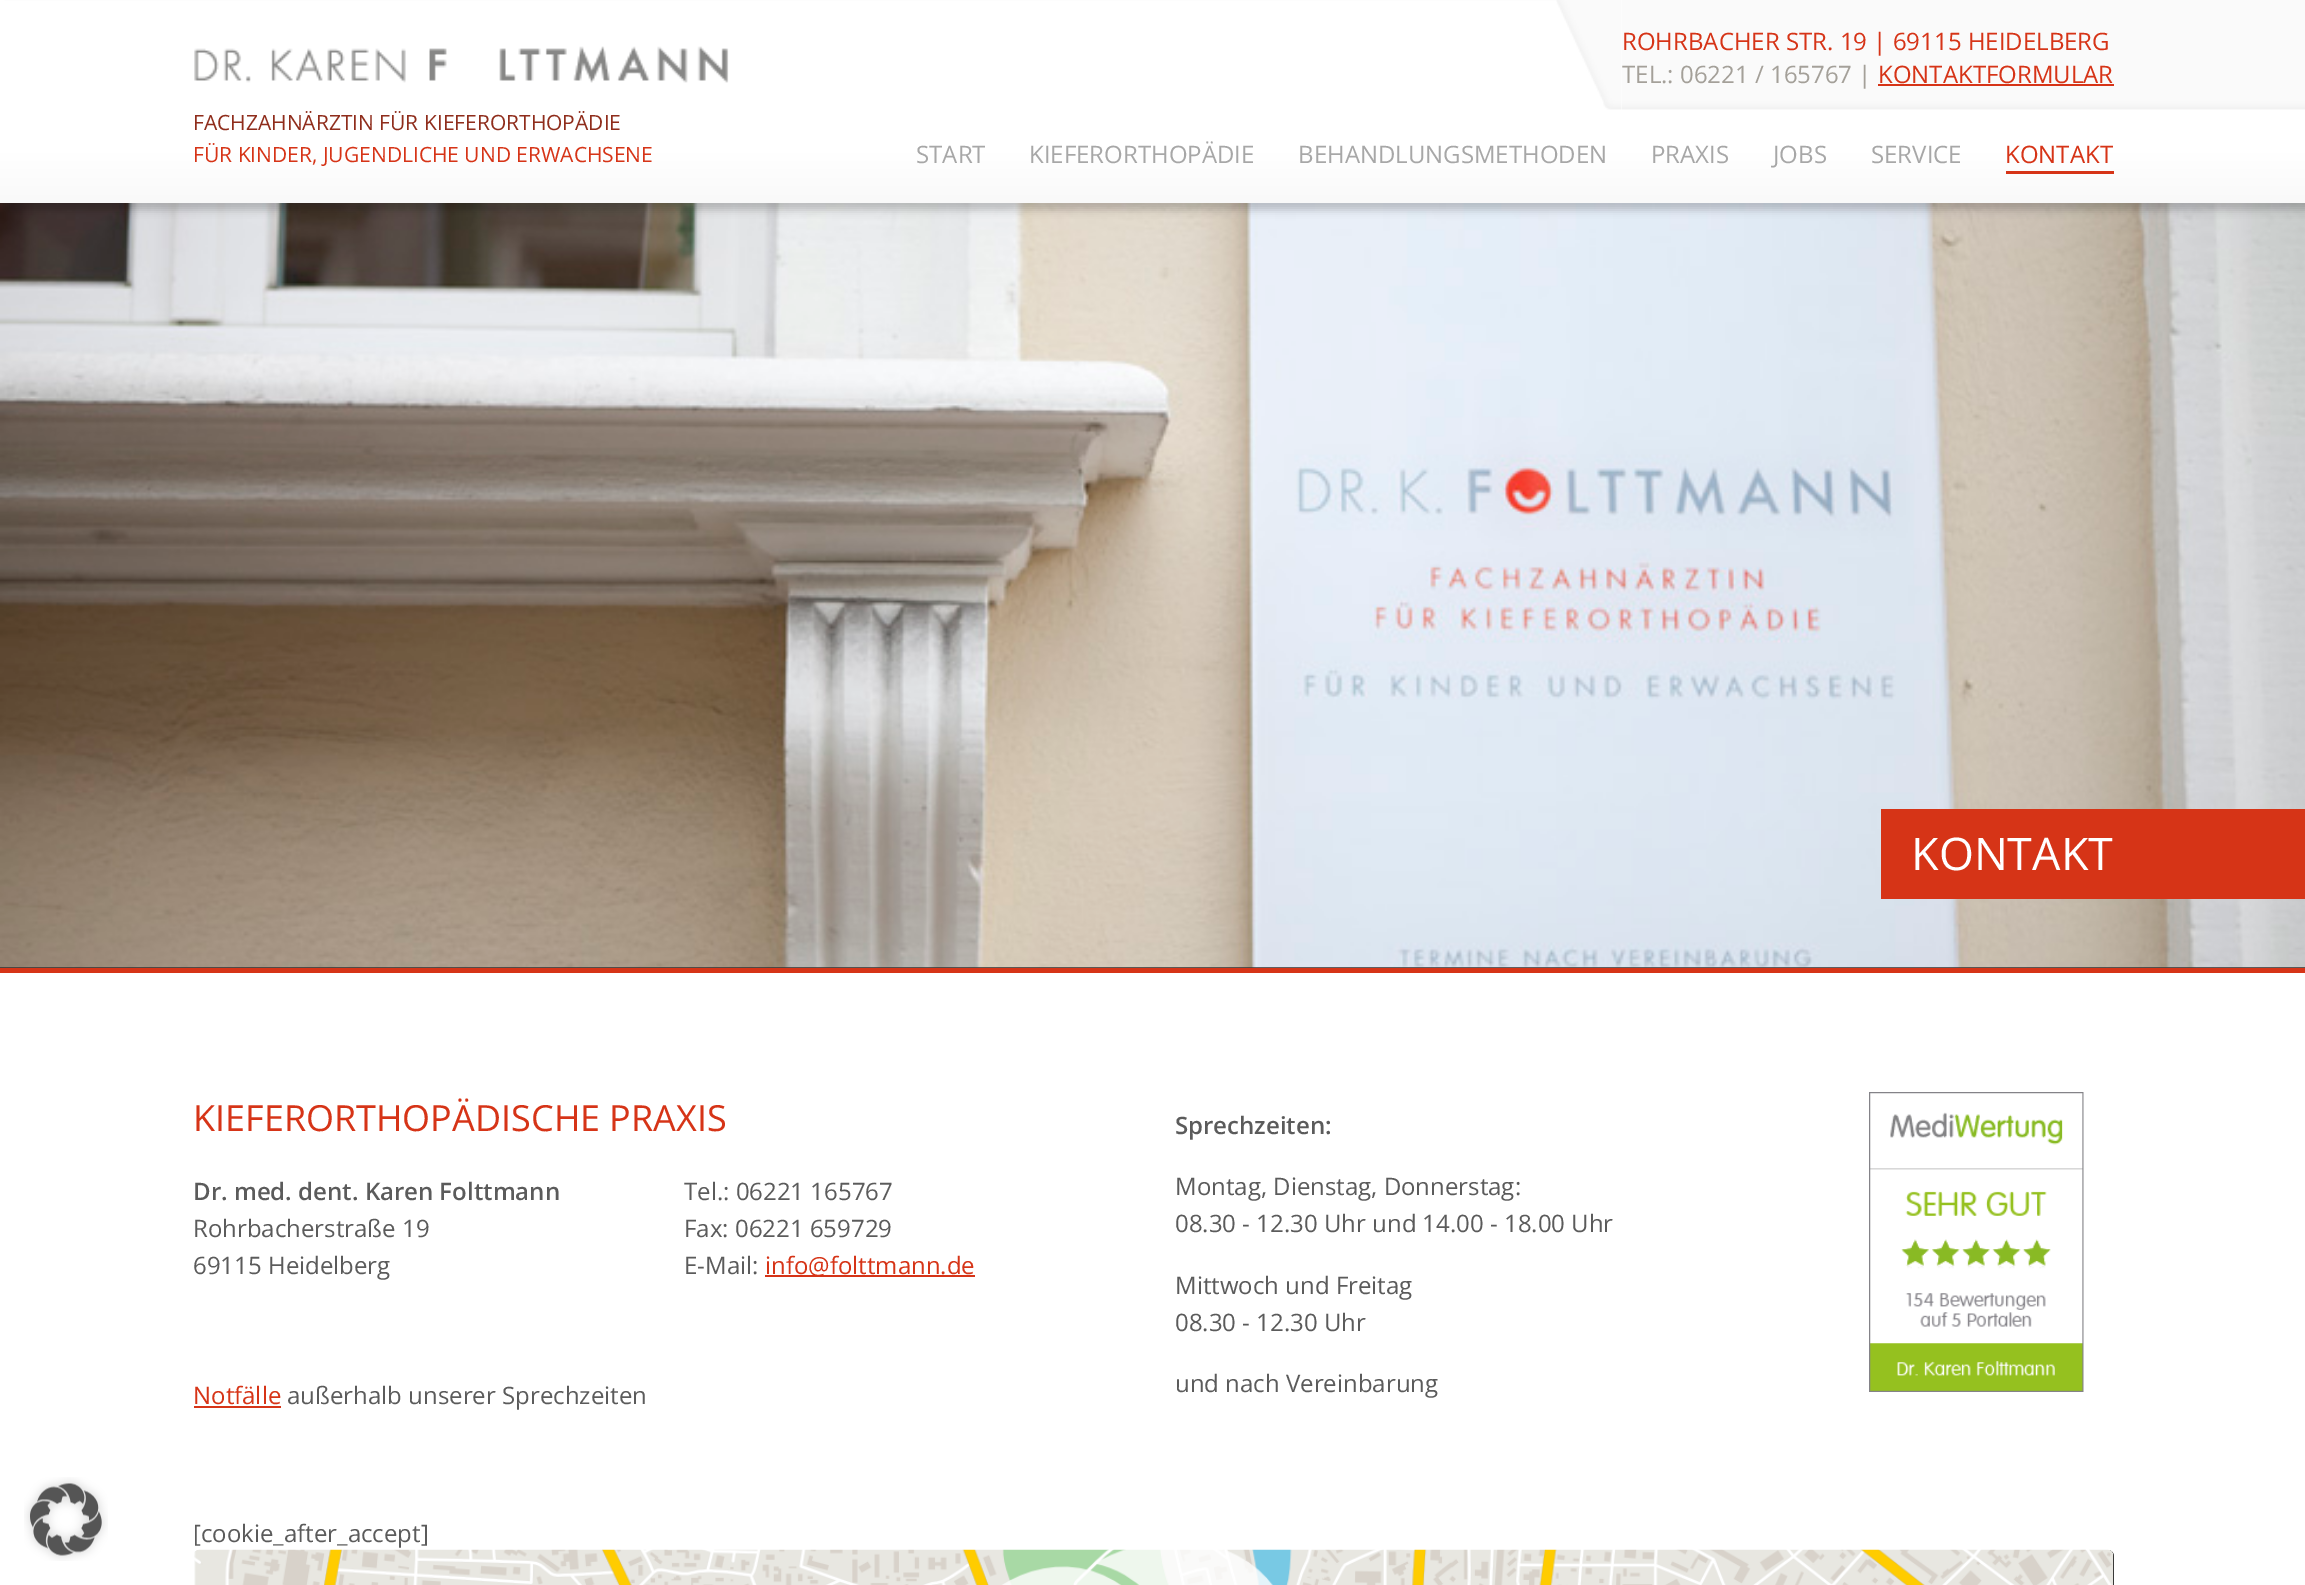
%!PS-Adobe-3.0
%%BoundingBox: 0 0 2305 1585
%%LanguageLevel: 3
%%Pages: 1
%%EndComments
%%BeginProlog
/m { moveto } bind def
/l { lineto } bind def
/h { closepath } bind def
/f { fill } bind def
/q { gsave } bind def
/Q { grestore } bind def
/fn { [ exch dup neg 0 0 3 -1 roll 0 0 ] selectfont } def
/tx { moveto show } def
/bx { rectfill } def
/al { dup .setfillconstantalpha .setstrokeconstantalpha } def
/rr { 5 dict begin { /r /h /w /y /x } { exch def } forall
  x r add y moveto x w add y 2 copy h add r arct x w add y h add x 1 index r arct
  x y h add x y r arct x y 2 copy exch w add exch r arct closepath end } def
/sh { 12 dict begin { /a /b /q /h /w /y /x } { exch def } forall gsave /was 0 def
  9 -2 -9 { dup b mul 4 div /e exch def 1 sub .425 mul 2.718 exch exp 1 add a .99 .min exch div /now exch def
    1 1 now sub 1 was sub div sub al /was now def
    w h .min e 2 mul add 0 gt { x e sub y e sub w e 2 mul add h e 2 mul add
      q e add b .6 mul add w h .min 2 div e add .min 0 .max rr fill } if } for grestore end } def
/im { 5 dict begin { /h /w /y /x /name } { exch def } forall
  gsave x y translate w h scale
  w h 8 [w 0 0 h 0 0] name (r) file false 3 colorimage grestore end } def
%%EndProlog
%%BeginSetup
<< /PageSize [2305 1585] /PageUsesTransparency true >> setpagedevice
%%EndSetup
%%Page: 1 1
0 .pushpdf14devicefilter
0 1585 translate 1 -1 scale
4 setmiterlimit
1 setgray
0 0 2305 1585 bx
0.2 setgray
0 967 2305 1 bx
(image4.raw) 0 203 2305 765 im
0 setgray
8 8 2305 202 0 4 0.2 sh
q 0 1 m 2305 1 l 2305 203 l 0 203 l h clip newpath
<< /ShadingType 2 /ColorSpace /DeviceRGB /Coords [1153 0 1153 203] /Extend [true true] /Function << /FunctionType 3 /Domain [0 1] /Functions [<< /FunctionType 2 /Domain [0 1] /C0 [1 1 1] /C1 [1 1 1] /N 1 >> << /FunctionType 2 /Domain [0 1] /C0 [1 1 1] /C1 [0.976 0.976 0.976] /N 1 >>] /Bounds [0.75] /Encode [0 1 0 1] >> >> shfill Q
(image0.raw) 1621 0 684 110 im
(image1.raw) 1556 0 65 110 im
/OpenSans-Regular 24 fn
0.839 0.204 0.09 setrgbcolor
(ROHRBACHER STR. 19 | 69115 HEIDELBERG) 1622 50 tx
0.643 0.627 0.6 setrgbcolor
(TEL.: 06221 / 165767 |) 1622 83 tx
0.839 0.204 0.09 setrgbcolor
(KONTAKTFORMULAR) 1878 83 tx
1878 84 236 2 bx
(image2.raw) 194 46 535 37 im
/OpenSans-Regular 21 fn
0.561 0.176 0.11 setrgbcolor
(FACHZAHNÄRZTIN FÜR KIEFERORTHOPÄDIE) 193 130 tx
0.839 0.204 0.09 setrgbcolor
(FÜR KINDER, JUGENDLICHE UND ERWACHSENE) 193 162 tx
/OpenSans-Regular 24 fn
0.655 setgray
(START) 916 163 tx
(KIEFERORTHOPÄDIE) 1029 163 tx
(BEHANDLUNGSMETHODEN) 1298 163 tx
(PRAXIS) 1651 163 tx
(JOBS) 1773 163 tx
(SERVICE) 1871 163 tx
0.839 0.204 0.09 setrgbcolor
(KONTAKT) 2005 163 tx
2006 171 108 3 bx
(image3.raw) 24 1477 84 84 im
0 968 2305 5 bx
1881 809 424 90 bx
/OpenSans-Regular 45 fn
1 setgray
(KONTAKT) 1911 870 tx
/OpenSans-Regular 36 fn
0.839 0.204 0.09 setrgbcolor
(KIEFERORTHOPÄDISCHE PRAXIS) 193 1131 tx
/OpenSans-SemiBold 24 fn
0.357 setgray
(Dr. med. dent. Karen Folttmann) 193 1200 tx
/OpenSans-Regular 24 fn
(Rohrbacherstraße 19) 193 1237 tx
(69115 Heidelberg) 193 1274 tx
(Tel.: 06221 165767) 684 1200 tx
(Fax: 06221 659729) 684 1237 tx
(E-Mail:) 684 1274 tx
0.839 0.204 0.09 setrgbcolor
765 1275 210 2 bx
(info@folttmann.de) 765 1274 tx
(Notfälle) 193 1404 tx
194 1406 87 2 bx
0.357 setgray
(außerhalb unserer Sprechzeiten) 287 1404 tx
/OpenSans-SemiBold 24 fn
(Sprechzeiten:) 1175 1134 tx
/OpenSans-Regular 24 fn
(Montag, Dienstag, Donnerstag:) 1175 1195 tx
(08.30 - 12.30 Uhr und 14.00 - 18.00 Uhr) 1175 1232 tx
(Mittwoch und Freitag) 1175 1294 tx
(08.30 - 12.30 Uhr) 1175 1331 tx
(und nach Vereinbarung) 1175 1392 tx
(image5.raw) 1869 1092 215 300 im
([cookie_after_accept]) 193 1542 tx
0 setgray
194 1550 1920 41 6 rr f
(image6.raw) 194 1549 1920 36 im
.poppdf14devicefilter showpage
%%EOF
